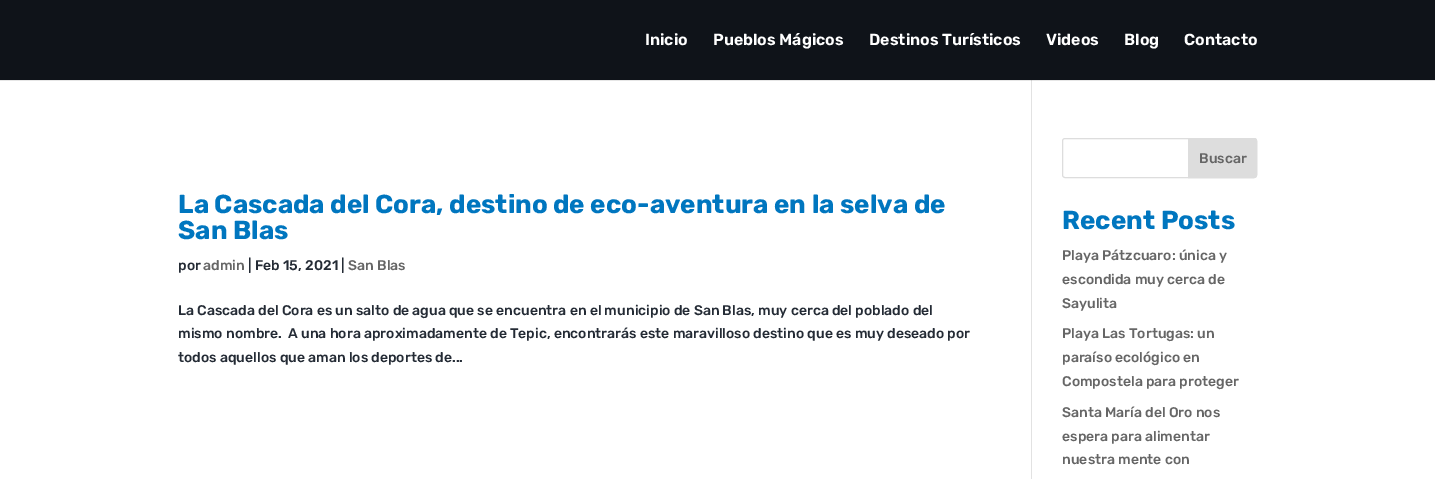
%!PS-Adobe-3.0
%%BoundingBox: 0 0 1435 479
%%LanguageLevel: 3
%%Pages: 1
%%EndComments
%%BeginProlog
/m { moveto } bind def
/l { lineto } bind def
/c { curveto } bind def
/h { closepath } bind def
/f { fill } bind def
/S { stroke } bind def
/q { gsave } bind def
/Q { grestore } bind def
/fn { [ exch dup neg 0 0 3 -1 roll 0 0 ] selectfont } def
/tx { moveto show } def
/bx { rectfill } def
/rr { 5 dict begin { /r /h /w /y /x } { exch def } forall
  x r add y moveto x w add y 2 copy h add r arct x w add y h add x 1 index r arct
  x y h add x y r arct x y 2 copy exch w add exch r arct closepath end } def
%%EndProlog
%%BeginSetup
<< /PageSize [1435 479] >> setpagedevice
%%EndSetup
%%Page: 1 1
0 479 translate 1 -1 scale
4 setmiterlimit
1 setgray
0 0 1435 479 bx
0.902 setgray
0 80 1435 1 bx
0.059 0.075 0.098 setrgbcolor
0 0 1435 80 bx
/Rubik-SemiBold 16 fn
1 setgray
(Inicio) 645 45 tx
(Pueblos Mágicos) 713 45 tx
(Destinos Turísticos) 869 45 tx
(Videos) 1046 45 tx
(Blog) 1124 45 tx
(Contacto) 1184 45 tx
0.886 setgray
1031 80 1 399 bx
0.796 setgray
1031 80 1 1 bx
/Rubik-Bold 26 fn
0 0.463 0.749 setrgbcolor
(La Cascada del Cora, destino de eco-aventura en la selva de) 178 213 tx
(San Blas) 178 239 tx
/Rubik-Medium 14 fn
0.141 0.169 0.208 setrgbcolor
(por) 178 270 tx
0.4 setgray
(admin) 203 270 tx
0.141 0.169 0.208 setrgbcolor
(| Feb 15, 2021 |) 248 270 tx
0.4 setgray
(San Blas) 348 270 tx
0.141 0.169 0.208 setrgbcolor
(La Cascada del Cora es un salto de agua que se encuentra en el municipio de San Blas, muy cerca del poblado del) 178 315 tx
(mismo nombre.  A una hora aproximadamente de Tepic, encontrarás este maravilloso destino que es muy deseado por) 178 338 tx
(todos aquellos que aman los deportes de...) 178 362 tx
0.867 setgray
1062.5 138.5 194 39 2.5 rr S
1188.5 138.5 m 1254 138.5 l 1255.5 138.5 1256.5 139.5 1256.5 141 c 1256.5 175 l 1256.5 176.5 1255.5 177.5 1254 177.5 c 1188.5 177.5 l h q f Q
S
0.4 setgray
(Buscar) 1199 163 tx
/Rubik-Bold 26 fn
0 0.463 0.749 setrgbcolor
(Recent Posts) 1062 229 tx
/Rubik-Medium 14 fn
0.4 setgray
(Playa Pátzcuaro: única y) 1062 260 tx
(escondida muy cerca de) 1062 284 tx
(Sayulita) 1062 308 tx
(Playa Las Tortugas: un) 1062 338 tx
(paraíso ecológico en) 1062 362 tx
(Compostela para proteger) 1062 386 tx
(Santa María del Oro nos) 1062 417 tx
(espera para alimentar) 1062 441 tx
(nuestra mente con) 1062 464 tx
showpage
%%EOF
